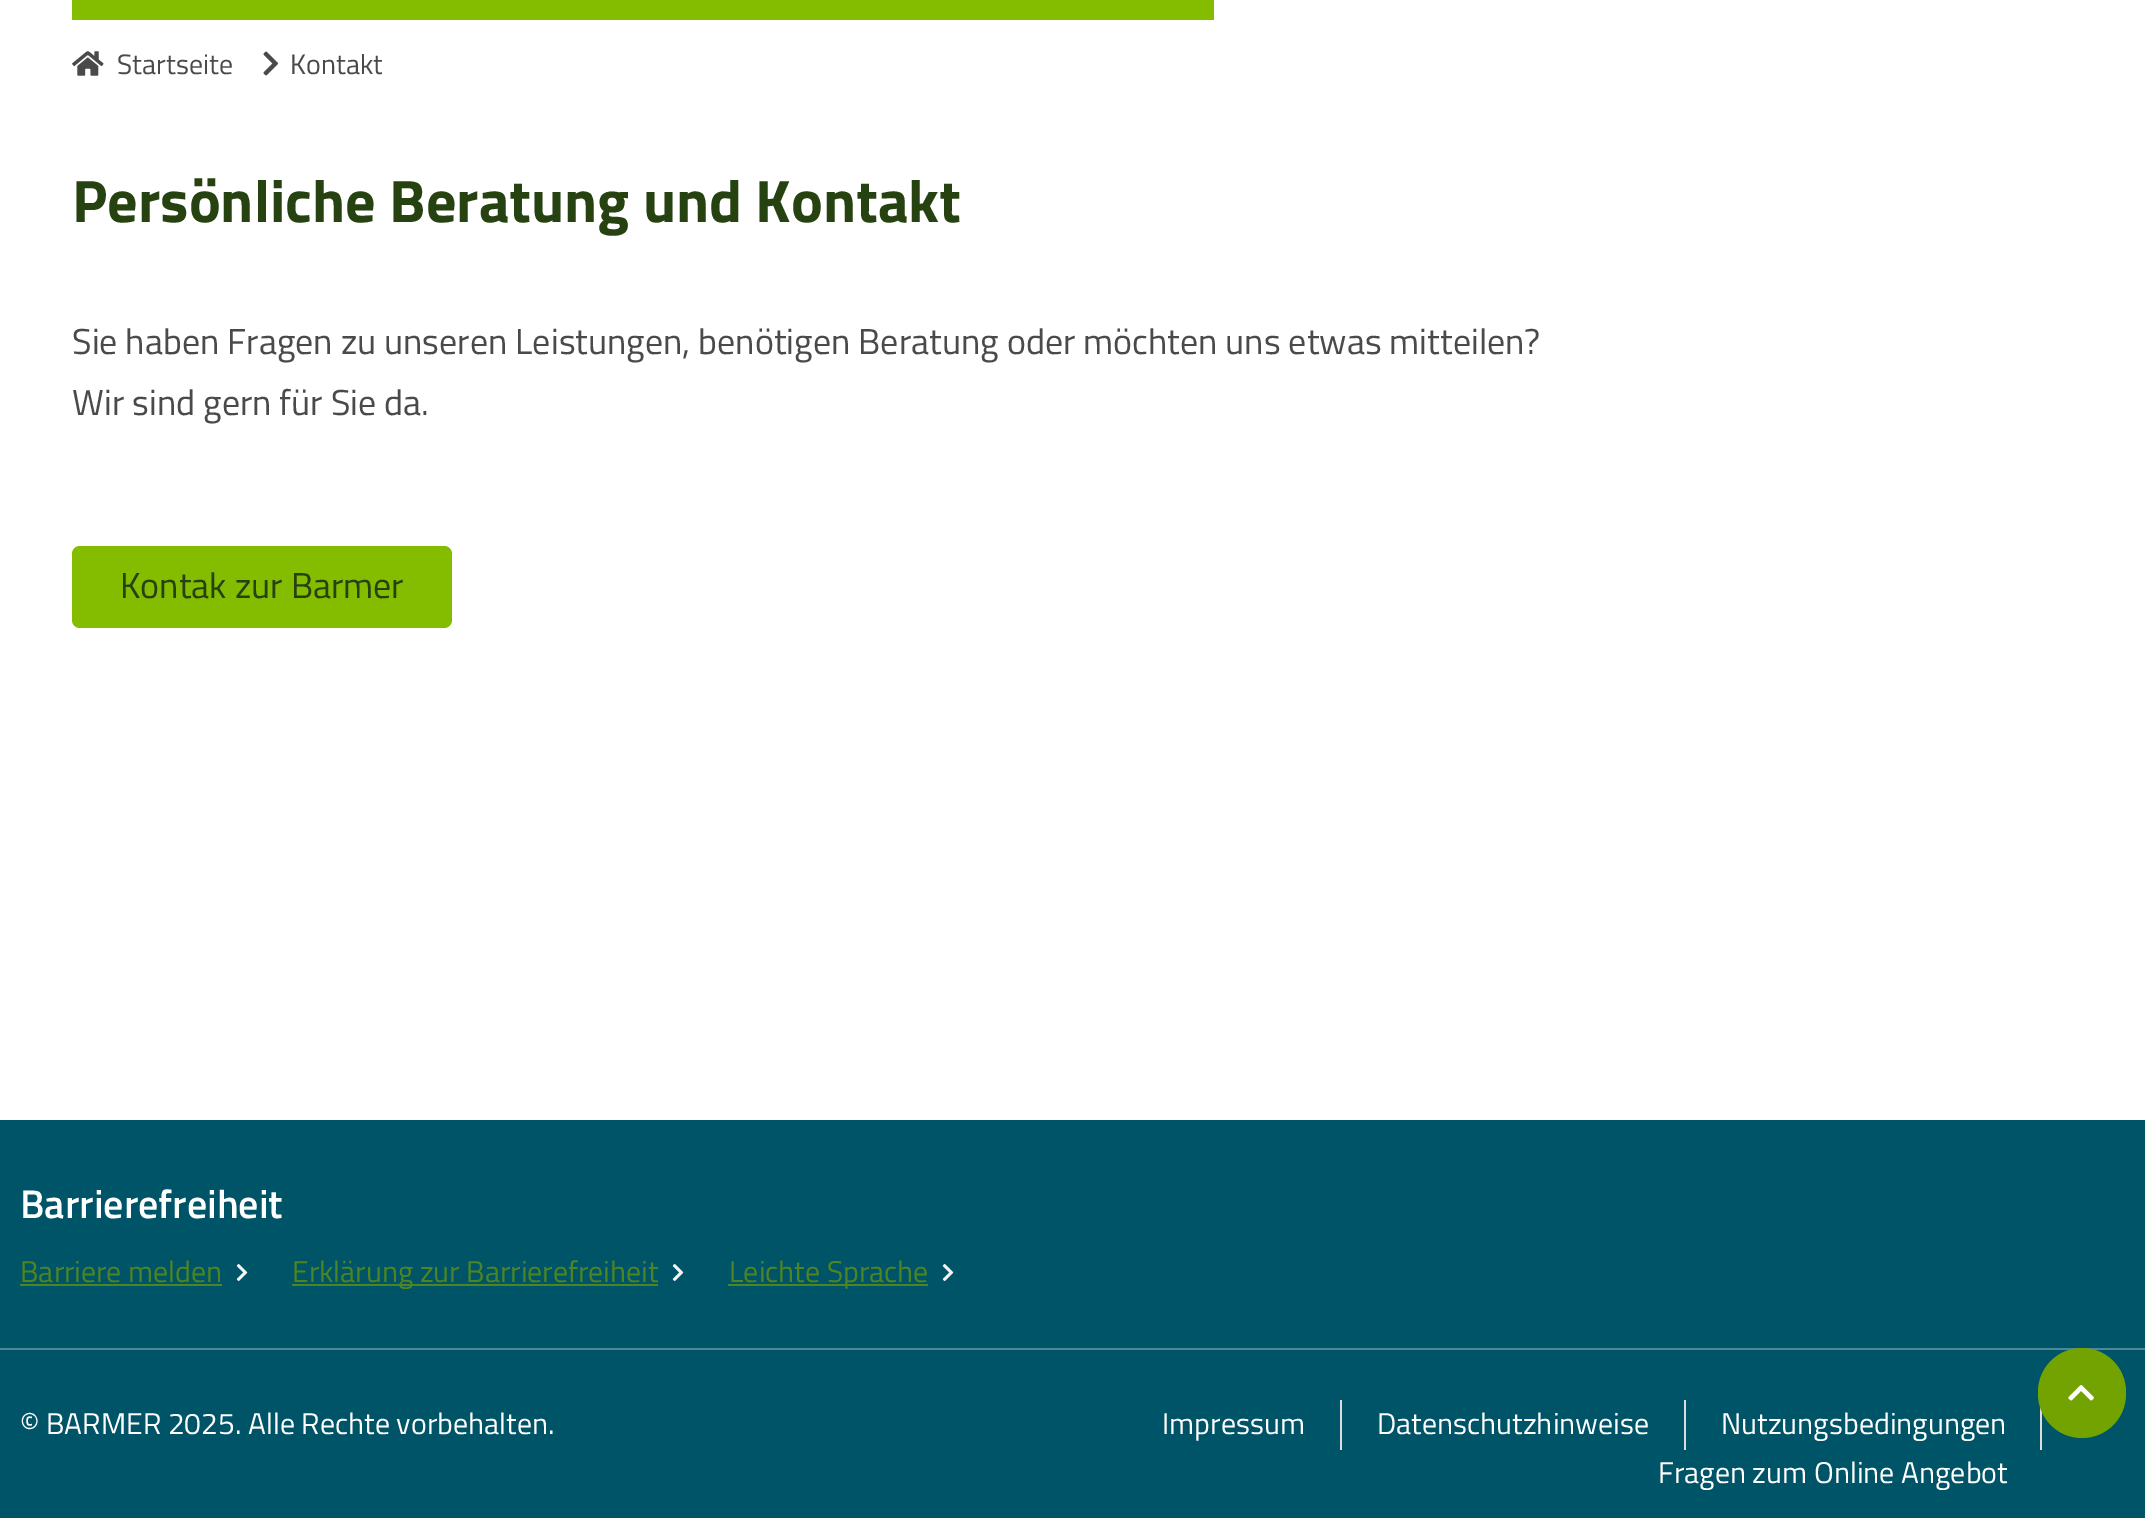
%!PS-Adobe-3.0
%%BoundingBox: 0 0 2145 1518
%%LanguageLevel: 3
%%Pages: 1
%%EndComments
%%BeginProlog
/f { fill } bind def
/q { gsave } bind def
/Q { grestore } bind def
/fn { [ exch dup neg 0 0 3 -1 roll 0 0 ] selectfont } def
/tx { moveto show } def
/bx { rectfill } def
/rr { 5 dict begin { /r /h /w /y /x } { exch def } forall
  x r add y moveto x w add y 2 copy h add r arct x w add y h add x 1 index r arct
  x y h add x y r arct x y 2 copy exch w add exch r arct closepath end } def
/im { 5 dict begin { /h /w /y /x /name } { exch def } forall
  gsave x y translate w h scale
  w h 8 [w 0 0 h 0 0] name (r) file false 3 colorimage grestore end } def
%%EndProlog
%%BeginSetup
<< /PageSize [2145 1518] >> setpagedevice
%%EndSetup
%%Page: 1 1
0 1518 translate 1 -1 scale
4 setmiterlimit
1 setgray
0 0 2145 1518 bx
0.518 0.741 0 setrgbcolor
72 0 1142 20 bx
(image0.raw) 72 51 32 25 im
/TitilliumWeb-Regular 28 fn
0.29 setgray
(Startseite) 117 74 tx
(image1.raw) 263 51 15 25 im
q
244 40 138 50 rectclip
(Kontakt) 290 74 tx
Q
/TitilliumWeb-Bold 60 fn
0.153 0.259 0.067 setrgbcolor
(Persönliche Beratung und Kontakt) 72 222 tx
/TitilliumWeb-Regular 36 fn
0.29 setgray
(Sie haben Fragen zu unseren Leistungen, benötigen Beratung oder möchten uns etwas mitteilen?) 72 354 tx
(Wir sind gern für Sie da.) 72 415 tx
0.518 0.741 0 setrgbcolor
72 546 380 82 8 rr f
0.153 0.259 0.067 setrgbcolor
(Kontak zur Barmer) 120 598 tx
0 0.329 0.408 setrgbcolor
0 1120 2145 398 bx
/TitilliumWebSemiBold-SemiBold 40 fn
1 setgray
(Barrierefreiheit) 20 1218 tx
/TitilliumWeb-Regular 30 fn
0.306 0.518 0.133 setrgbcolor
(Barriere melden) 20 1282 tx
20 1284 202 2 bx
(image2.raw) 236 1264 12 17 im
292 1284 366 2 bx
(Erklärung zur Barrierefreiheit) 292 1282 tx
(image2.raw) 672 1264 12 17 im
728 1284 200 2 bx
(Leichte Sprache) 729 1282 tx
(image2.raw) 942 1264 12 17 im
0.302 0.533 0.588 setrgbcolor
0 1348 2145 2 bx
0.867 setgray
2040 1400 2 50 bx
0.447 0.639 0 setrgbcolor
2038 1348 88 90 44 rr f
(image3.raw) 2068 1385 26 16 im
1 setgray
(© BARMER 2025. Alle Rechte vorbehalten.) 20 1434 tx
(Impressum) 1162 1434 tx
0.867 setgray
1340 1400 2 50 bx
1 setgray
(Datenschutzhinweise) 1377 1434 tx
0.867 setgray
1684 1400 2 50 bx
1 setgray
(Nutzungsbedingungen) 1721 1434 tx
(Fragen zum Online Angebot) 1658 1483 tx
showpage
%%EOF
